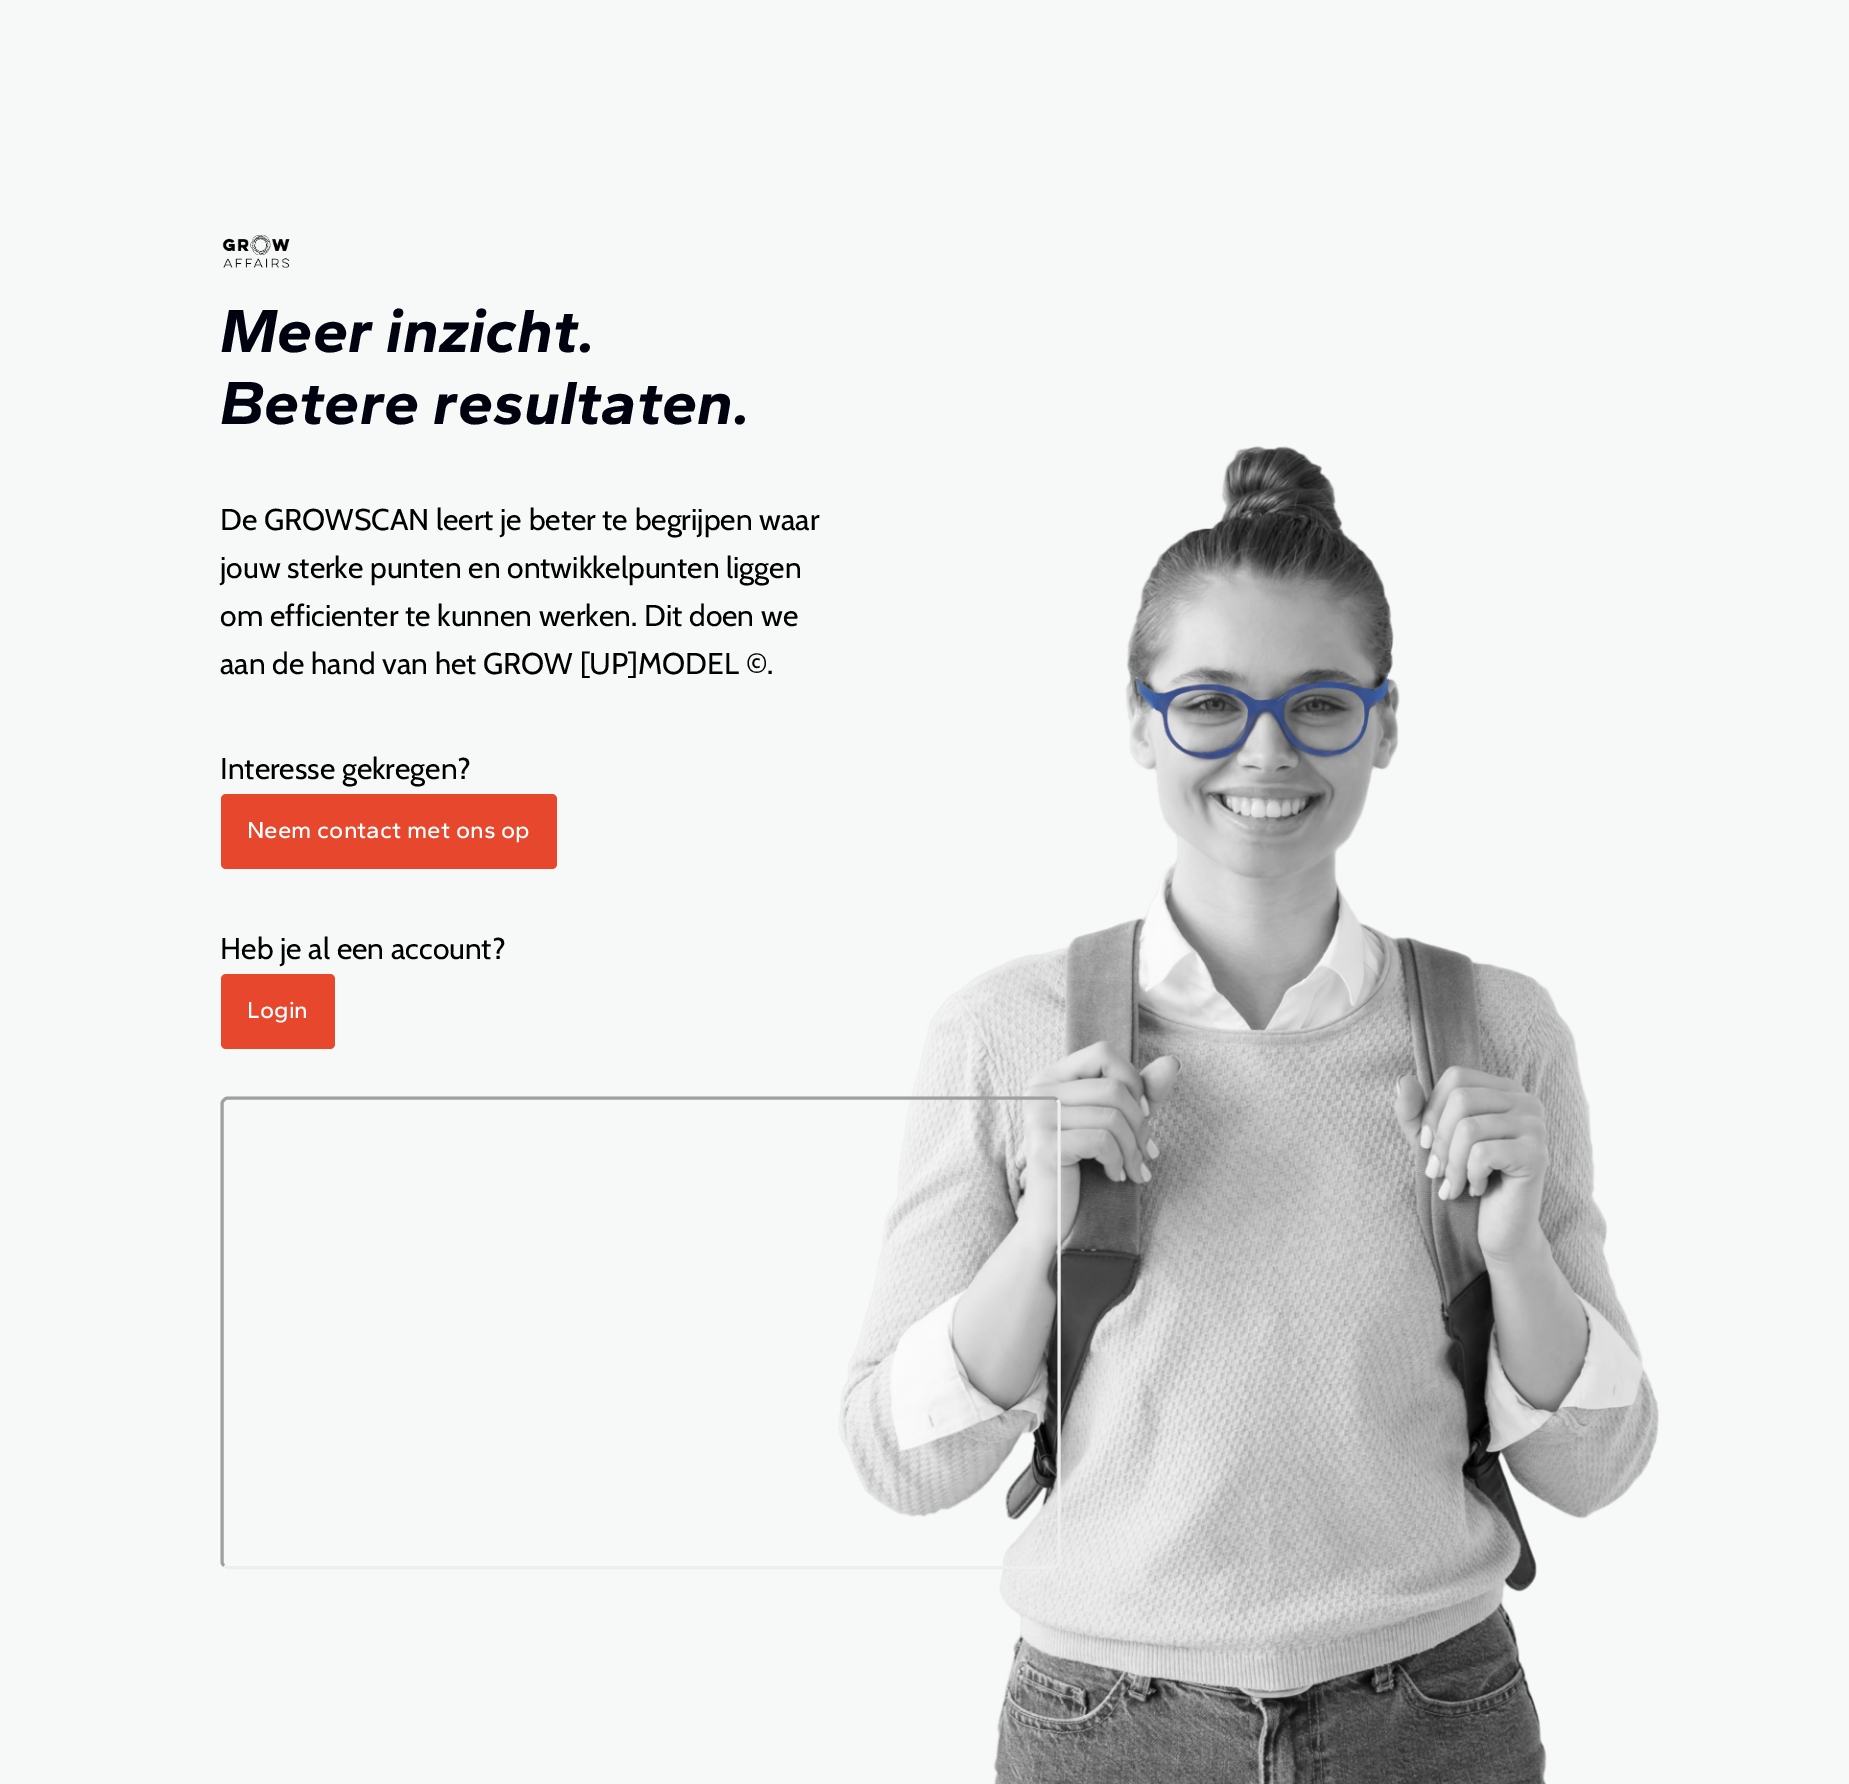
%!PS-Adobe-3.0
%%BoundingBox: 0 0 1849 1784
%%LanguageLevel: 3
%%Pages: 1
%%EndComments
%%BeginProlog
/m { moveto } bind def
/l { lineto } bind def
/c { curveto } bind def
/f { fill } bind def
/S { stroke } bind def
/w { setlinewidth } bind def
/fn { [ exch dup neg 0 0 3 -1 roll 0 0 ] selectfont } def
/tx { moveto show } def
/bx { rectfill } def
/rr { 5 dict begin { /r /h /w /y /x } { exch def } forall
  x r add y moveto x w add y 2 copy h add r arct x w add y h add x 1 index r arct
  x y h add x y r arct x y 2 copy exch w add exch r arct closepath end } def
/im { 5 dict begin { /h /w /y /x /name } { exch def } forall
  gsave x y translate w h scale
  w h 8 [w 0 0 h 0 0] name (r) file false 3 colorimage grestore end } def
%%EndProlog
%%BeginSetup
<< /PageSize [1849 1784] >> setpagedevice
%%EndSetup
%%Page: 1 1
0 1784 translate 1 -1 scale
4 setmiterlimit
0.969 0.976 0.973 setrgbcolor
0 0 1849 1784 bx
(image0.raw) 838 446 821 1338 im
(image1.raw) 222 234 68 34 im
/Gantari-BoldItalic 63 fn
0 0.008 0.059 setrgbcolor
(Meer inzicht.) 220 352 tx
(Betere resultaten.) 220 424 tx
/Cabin-Regular 30 fn
0 setgray
(De GROWSCAN leert je beter te begrijpen waar) 220 530 tx
(jouw sterke punten en ontwikkelpunten liggen) 220 578 tx
(om efficienter te kunnen werken. Dit doen we) 220 626 tx
(aan de hand van het GROW [UP]MODEL ©.) 220 674 tx
(Interesse gekregen?) 220 779 tx
0.906 0.278 0.173 setrgbcolor
221 794 336 75 5 rr f
/Gantari-Medium 24 fn
1 setgray
(Neem contact met ons op) 247 838 tx
/Cabin-Regular 30 fn
0 setgray
(Heb je al een account?) 220 959 tx
0.906 0.278 0.173 setrgbcolor
221 974 114 75 5 rr f
/Gantari-Medium 24 fn
1 setgray
(Login) 247 1018 tx
0.933 setgray
3 w
1057 1100 m 1058.5 1101 1059 1102.5 1059 1104 c 1059 1561.5 l 1059 1563 1058.5 1564.5 1057 1565.5 c 1056 1567 1054.5 1567.5 1053 1567.5 c 228 1567.5 l 226.5 1567.5 225 1567 224 1565.5 c S
0.624 setgray
224 1565.5 m 222.5 1564.5 222 1563 222 1561.5 c 222 1104 l 222 1102.5 222.5 1101 224 1100 c 225 1098.5 226.5 1098 228 1098 c 1053 1098 l 1054.5 1098 1056 1098.5 1057 1100 c S
showpage
%%EOF
